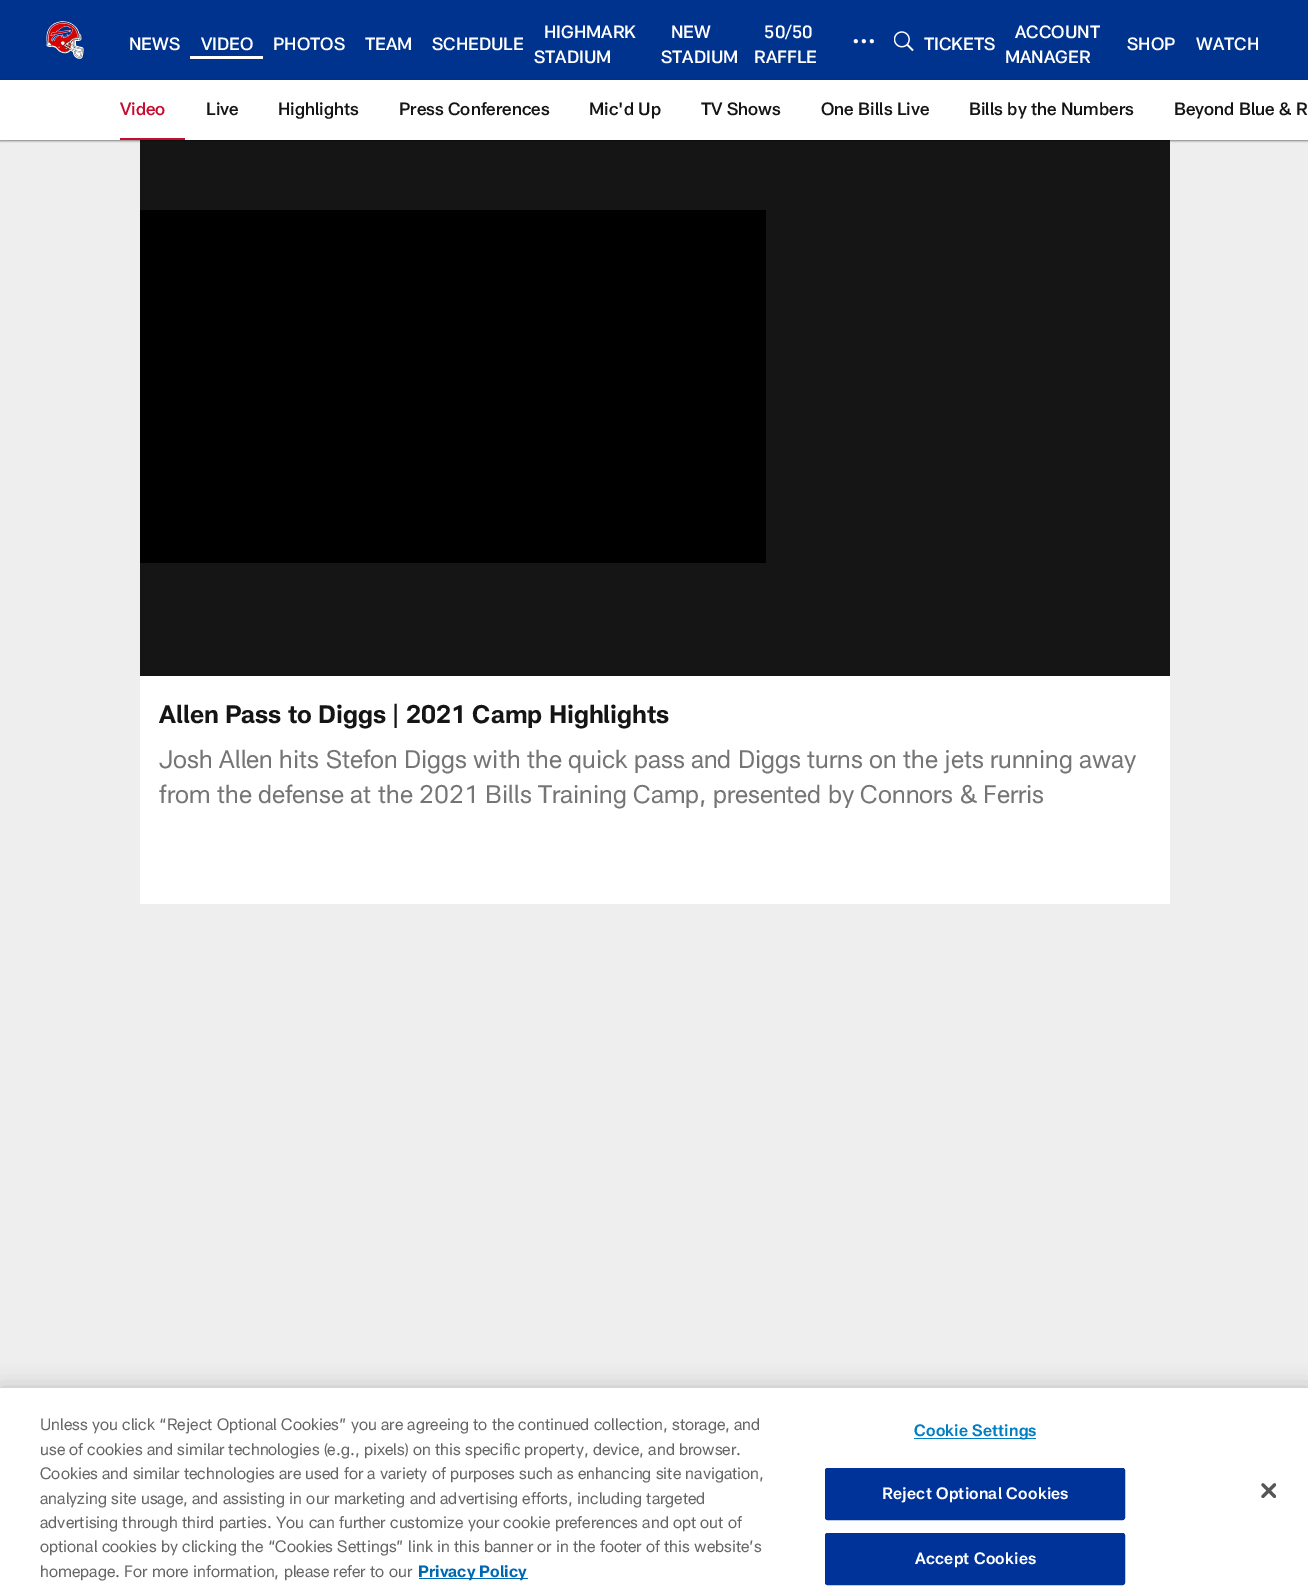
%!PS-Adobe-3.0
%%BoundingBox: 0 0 1308 1596
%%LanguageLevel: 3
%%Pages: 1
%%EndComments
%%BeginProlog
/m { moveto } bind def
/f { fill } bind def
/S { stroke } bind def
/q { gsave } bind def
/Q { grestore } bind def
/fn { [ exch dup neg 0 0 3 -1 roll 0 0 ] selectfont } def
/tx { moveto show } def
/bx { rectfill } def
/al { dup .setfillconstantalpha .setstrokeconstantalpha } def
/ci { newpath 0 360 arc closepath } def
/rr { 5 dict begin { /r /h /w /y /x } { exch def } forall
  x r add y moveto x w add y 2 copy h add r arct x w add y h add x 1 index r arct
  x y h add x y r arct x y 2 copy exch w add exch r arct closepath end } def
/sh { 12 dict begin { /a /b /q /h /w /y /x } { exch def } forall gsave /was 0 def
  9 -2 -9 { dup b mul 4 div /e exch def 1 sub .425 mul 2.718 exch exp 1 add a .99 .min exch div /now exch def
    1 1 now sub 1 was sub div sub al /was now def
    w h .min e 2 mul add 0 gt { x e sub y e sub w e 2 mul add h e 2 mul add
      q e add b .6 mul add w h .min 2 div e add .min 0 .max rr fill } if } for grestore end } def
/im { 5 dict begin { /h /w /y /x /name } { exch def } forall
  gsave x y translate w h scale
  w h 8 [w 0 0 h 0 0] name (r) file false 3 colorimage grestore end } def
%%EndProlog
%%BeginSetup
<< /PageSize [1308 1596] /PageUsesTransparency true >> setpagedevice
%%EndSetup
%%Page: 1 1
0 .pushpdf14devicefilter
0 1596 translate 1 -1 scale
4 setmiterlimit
0.933 setgray
0 0 1308 1596 bx
0 0.2 0.553 setrgbcolor
0 0 1308 80 bx
(image0.raw) 46 21 38 38 im
/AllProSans-Medium 17.5 fn
1 setgray
(NEWS) 129 50 tx
190 56 73 3 bx
(VIDEO) 201 50 tx
(PHOTOS) 273 50 tx
(TEAM) 365 50 tx
(SCHEDULE) 432 50 tx
(HIGHMARK) 544 38 tx
(STADIUM) 534 63 tx
(NEW) 671 38 tx
(STADIUM) 661 63 tx
(50/50) 764 38 tx
(RAFFLE) 754 63 tx
871.8 41.2 2 ci f
863.8 41.2 2 ci f
855.8 41.2 2 ci f
(image1.raw) 894 31 20 20 im
(TICKETS) 924 50 tx
(ACCOUNT) 1015 38 tx
(MANAGER) 1005 63 tx
(SHOP) 1127 50 tx
(WATCH) 1196 50 tx
0.082 setgray
140 140 1030 536 bx
0 setgray
0 81 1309 60 0 1 0.47 sh
1 setgray
0 80 1308 60 bx
0.776 0.047 0.188 setrgbcolor
120 138 65 2 bx
(Video) 120 115 tx
0.082 setgray
(Live) 206 115 tx
(Highlights) 278 115 tx
(Press Conferences) 399 115 tx
(Mic'd Up) 589 115 tx
(TV Shows) 701 115 tx
(One Bills Live) 821 115 tx
(Bills by the Numbers) 969 115 tx
(Beyond Blue & R) 1174 115 tx
1 setgray
140 676 1030 228 bx
0 setgray
140 210 626 353 bx
/AllProSans-Bold 25 fn
0.082 setgray
(Allen Pass to Diggs | 2021 Camp Highlights) 159 723 tx
/AllProSans-Regular 25 fn
0.459 setgray
(Josh Allen hits Stefon Diggs with the quick pass and Diggs turns on the jets running away) 159 768 tx
(from the defense at the 2021 Bills Training Camp, presented by Connors & Ferris) 159 803 tx
0 setgray
0 1388 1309 208 0 11 0.2 sh
1 setgray
0 1388 1308 208 bx
/AllProSans-Regular 16.25 fn
0.4 setgray
(Unless you click “Reject Optional Cookies” you are agreeing to the continued collection, storage, and) 40 1430 tx
(use of cookies and similar technologies \(e.g., pixels\) on this specific property, device, and browser.) 40 1455 tx
(Cookies and similar technologies are used for a variety of purposes such as enhancing site navigation,) 40 1479 tx
(analyzing site usage, and assisting in our marketing and advertising efforts, including targeted) 40 1504 tx
(advertising through third parties. You can further customize your cookie preferences and opt out of) 40 1528 tx
(optional cookies by clicking the “Cookies Settings” link in this banner or in the footer of this website’s) 40 1552 tx
(homepage. For more information, please refer to our) 40 1577 tx
0 0.404 0.694 setrgbcolor
419 1578 109 1 bx
/AllProSans-Bold 16.25 fn
(Privacy Policy) 418 1577 tx
0 0.49 0.765 setrgbcolor
914 1438 122 1 bx
/AllProSans-SemiBold 16.25 fn
914 1436 m 0.2 0 (Cookie Settings) ashow
0 0.2 0.6 setrgbcolor
825.5 1468.5 299 51 2 rr q f Q
S
1 setgray
882 1499 m 0.2 0 (Reject Optional Cookies) ashow
0 0.2 0.6 setrgbcolor
825.5 1533.5 299 51 2 rr q f Q
S
1 setgray
915 1564 m 0.2 0 (Accept Cookies) ashow
(image2.raw) 1261 1483 15 15 im
.poppdf14devicefilter showpage
%%EOF
